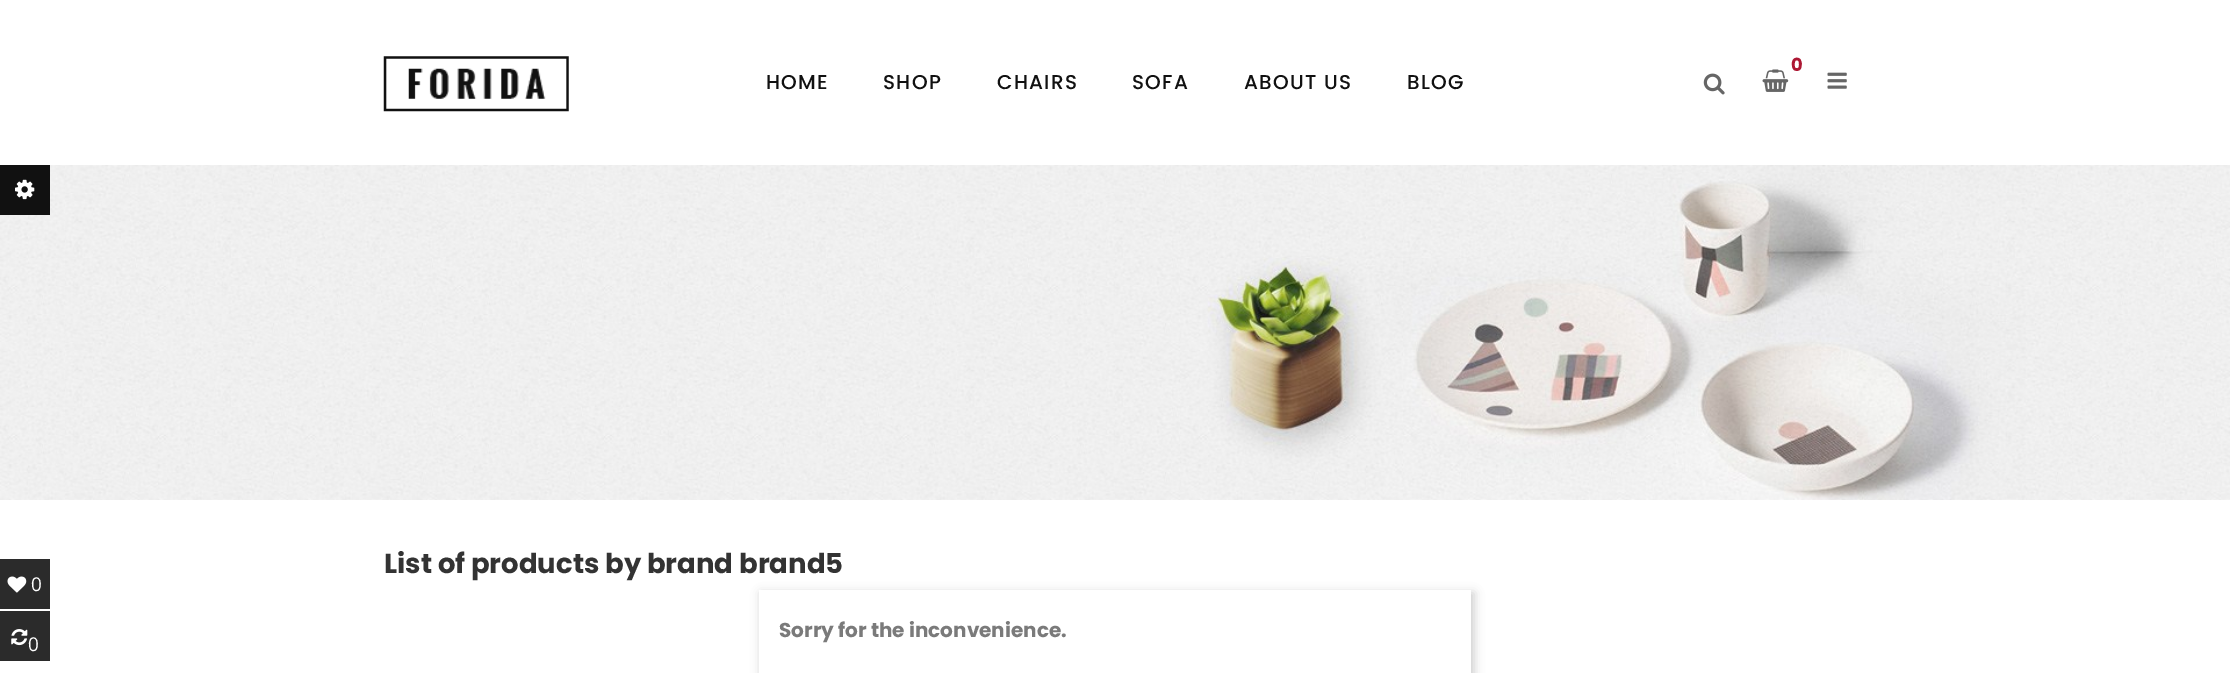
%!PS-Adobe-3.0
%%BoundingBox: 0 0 2230 673
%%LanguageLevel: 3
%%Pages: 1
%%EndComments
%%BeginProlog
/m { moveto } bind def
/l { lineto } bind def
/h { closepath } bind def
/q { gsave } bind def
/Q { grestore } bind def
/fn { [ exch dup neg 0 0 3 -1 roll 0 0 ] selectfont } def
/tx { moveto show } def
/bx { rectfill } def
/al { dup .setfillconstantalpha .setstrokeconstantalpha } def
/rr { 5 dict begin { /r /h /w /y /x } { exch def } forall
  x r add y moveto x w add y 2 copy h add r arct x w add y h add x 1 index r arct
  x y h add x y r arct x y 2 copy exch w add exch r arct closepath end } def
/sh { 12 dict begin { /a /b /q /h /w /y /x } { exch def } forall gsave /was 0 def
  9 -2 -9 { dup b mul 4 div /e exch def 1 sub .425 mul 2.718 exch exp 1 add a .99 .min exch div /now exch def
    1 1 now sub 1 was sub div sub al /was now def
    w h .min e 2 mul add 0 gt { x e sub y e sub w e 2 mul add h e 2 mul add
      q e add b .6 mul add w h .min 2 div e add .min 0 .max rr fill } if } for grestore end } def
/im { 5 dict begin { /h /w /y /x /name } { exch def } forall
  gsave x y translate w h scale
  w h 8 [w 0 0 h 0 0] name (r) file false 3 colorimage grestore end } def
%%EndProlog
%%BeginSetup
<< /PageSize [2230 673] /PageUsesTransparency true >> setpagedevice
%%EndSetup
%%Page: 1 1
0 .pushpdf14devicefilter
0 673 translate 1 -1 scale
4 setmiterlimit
1 setgray
0 0 2230 673 bx
(image5.raw) 0 165 2230 335 im
0.067 setgray
0 165 50 50 bx
(image0.raw) 15 179 20 21 im
(image1.raw) 383 56 186 56 im
/Poppins-Bold 18 fn
0.678 0.094 0.204 setrgbcolor
(0) 1791 71 tx
(image2.raw) 1762 69 27 23 im
(image3.raw) 1703 73 22 22 im
(image4.raw) 1827 72 20 17 im
/Poppins-Medium 20 fn
0.067 setgray
766 89 m 1.25 0 (HOME) ashow
883 89 m 1.25 0 (SHOP) ashow
997 89 m 1.25 0 (CHAIRS) ashow
1132 89 m 1.25 0 (SOFA) ashow
1244 89 m 1.25 0 (ABOUT US) ashow
1407 89 m 1.25 0 (BLOG) ashow
q
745 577 m 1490 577 l 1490 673 l 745 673 l h 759 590 m 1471 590 l 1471 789 l 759 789 l h eoclip newpath
0 setgray
761 593 713 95 0 5 0.2 sh
Q
/Poppins-Bold 27.5 fn
0.2 setgray
(List of products by brand brand5) 384 573 tx
/Poppins-Bold 20 fn
0.478 setgray
(Sorry for the inconvenience.) 779 637 tx
0.169 setgray
0 559 50 50 bx
(image6.raw) 7 576 20 17 im
/OpenSans-Regular 19 fn
1 setgray
(0) 31 591 tx
0.169 setgray
0 611 50 50 bx
(image7.raw) 11 629 17 17 im
1 setgray
(0) 28 651 tx
.poppdf14devicefilter showpage
%%EOF
